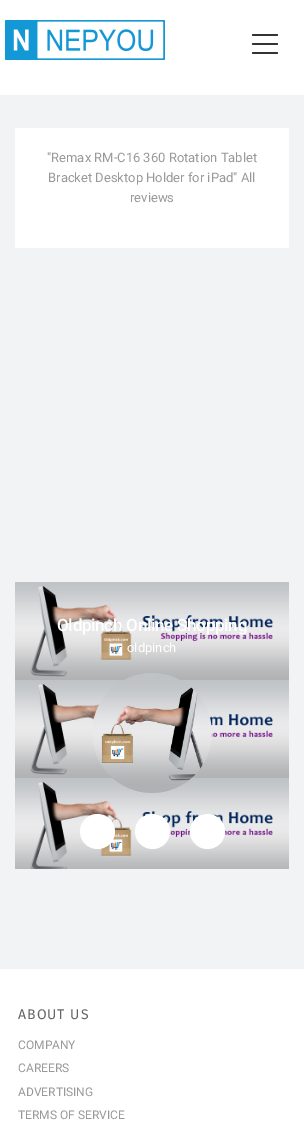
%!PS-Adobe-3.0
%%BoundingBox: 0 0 304 1125
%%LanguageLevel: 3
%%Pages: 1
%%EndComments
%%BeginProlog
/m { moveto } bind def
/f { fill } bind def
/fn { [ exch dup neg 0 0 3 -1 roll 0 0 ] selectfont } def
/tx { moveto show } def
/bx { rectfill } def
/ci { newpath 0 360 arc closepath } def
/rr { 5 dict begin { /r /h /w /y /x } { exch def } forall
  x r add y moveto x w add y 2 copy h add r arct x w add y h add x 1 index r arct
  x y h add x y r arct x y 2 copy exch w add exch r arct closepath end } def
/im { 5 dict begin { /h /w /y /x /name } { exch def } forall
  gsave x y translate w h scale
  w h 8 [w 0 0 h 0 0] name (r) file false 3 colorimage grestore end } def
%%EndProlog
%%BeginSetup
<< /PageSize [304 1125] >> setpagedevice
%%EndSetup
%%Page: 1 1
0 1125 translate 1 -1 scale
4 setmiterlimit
0.949 0.953 0.961 setrgbcolor
0 0 304 1125 bx
1 setgray
0 0 304 95 bx
(image0.raw) 5 20 160 40 im
0.2 setgray
252 34 26 2 1 rr f
252 43 26 2 1 rr f
252 52 26 2 1 rr f
1 setgray
15 128 274 120 bx
/Roboto-Regular 13 fn
0.6 setgray
("Remax RM-C16 360 Rotation Tablet) 47 162 tx
(Bracket Desktop Holder for iPad" All) 48 182 tx
(reviews) 130 202 tx
(image1.raw) 15 582 274 287 im
/Roboto-Medium 17 fn
1 setgray
57 631 m -0.25 0 (Oldpinch Online Shopping) ashow
/Roboto-Regular 13 fn
(oldpinch) 127 652 tx
(image2.raw) 93 673 119 120 im
97.5 831.5 17.5 ci f
152.5 831.5 17.5 ci f
207.5 831.5 17.5 ci f
0 969 304 156 bx
/FiraSans-Regular 14 fn
0.396 setgray
18 1019 m 1 0 (ABOUT US) ashow
/Roboto-Regular 12 fn
0.6 setgray
(COMPANY) 18 1049 tx
(CAREERS) 18 1072 tx
(ADVERTISING) 18 1096 tx
(TERMS OF SERVICE) 18 1119 tx
showpage
%%EOF
